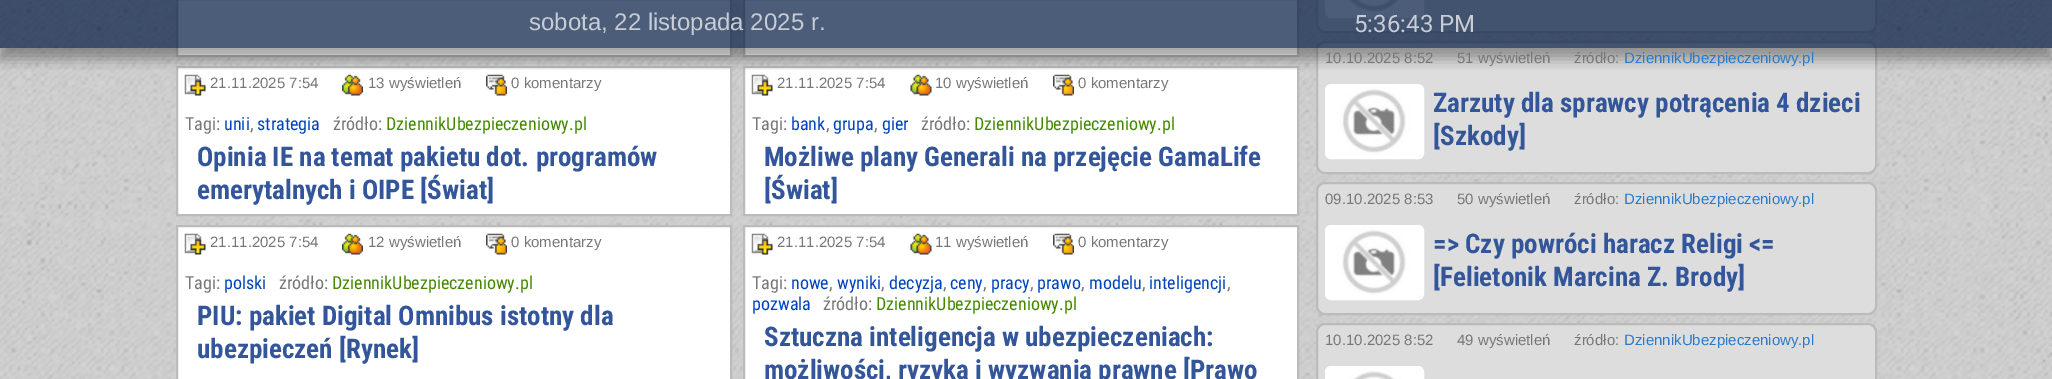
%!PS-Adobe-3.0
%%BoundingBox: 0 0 2052 379
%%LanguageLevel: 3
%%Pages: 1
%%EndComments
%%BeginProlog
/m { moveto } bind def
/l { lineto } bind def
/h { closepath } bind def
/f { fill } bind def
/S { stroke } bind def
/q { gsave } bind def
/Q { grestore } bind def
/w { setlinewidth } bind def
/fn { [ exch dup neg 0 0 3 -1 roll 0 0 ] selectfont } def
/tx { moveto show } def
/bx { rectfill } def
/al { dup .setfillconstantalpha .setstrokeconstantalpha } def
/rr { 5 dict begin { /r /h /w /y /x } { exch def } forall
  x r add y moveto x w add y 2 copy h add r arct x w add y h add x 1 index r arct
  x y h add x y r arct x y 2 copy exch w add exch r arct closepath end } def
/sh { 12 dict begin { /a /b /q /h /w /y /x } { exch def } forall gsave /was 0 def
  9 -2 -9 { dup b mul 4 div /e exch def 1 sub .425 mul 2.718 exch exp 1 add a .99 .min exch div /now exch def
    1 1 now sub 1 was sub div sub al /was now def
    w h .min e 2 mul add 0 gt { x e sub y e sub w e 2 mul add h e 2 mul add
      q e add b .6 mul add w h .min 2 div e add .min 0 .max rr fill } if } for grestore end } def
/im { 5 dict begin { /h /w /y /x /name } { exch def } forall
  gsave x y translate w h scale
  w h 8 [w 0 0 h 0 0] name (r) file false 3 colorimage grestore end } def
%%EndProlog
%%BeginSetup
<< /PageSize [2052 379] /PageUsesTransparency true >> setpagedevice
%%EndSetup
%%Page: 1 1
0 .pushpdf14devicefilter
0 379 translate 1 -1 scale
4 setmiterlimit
1 setgray
0 0 2052 379 bx
(image0.raw) 0 0 2052 379 im
177 -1 m 731 -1 l 731 56 l 177 56 l h q f Q
0.733 setgray
2 w
S
1 setgray
744 -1 m 1298 -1 l 1298 56 l 744 56 l h q f Q
0.733 setgray
S
1 setgray
177 67 m 731 67 l 731 215 l 177 215 l h q f Q
0.733 setgray
S
(image1.raw) 184 74 22 23 im
(image2.raw) 342 74 21 22 im
(image3.raw) 486 74 21 22 im
1 setgray
744 67 m 1298 67 l 1298 215 l 744 215 l h q f Q
0.733 setgray
S
(image4.raw) 751 74 22 23 im
(image5.raw) 910 74 22 22 im
(image3.raw) 1053 74 21 22 im
0.867 setgray
1317 -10 559 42 8 rr q f Q
0.733 setgray
S
1 setgray
1326 -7 97 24 5 rr S
(image6.raw) 1327 0 95 16 im
0.867 setgray
1317 42 559 131 8 rr q f Q
0.733 setgray
S
q
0 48 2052 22 rectclip
0 setgray
0 11 2052 48 0 7 0.35 sh
Q
0.7 al
0 0.094 0.251 setrgbcolor
0 0 2052 48 bx
/LiberationSans-Regular 24 fn
1 al
0.78 0.8 0.835 setrgbcolor
(sobota, 22 listopada 2025 r.) 529 30 tx
/Roboto-Regular 24 fn
(5:36:43 PM) 1354 32 tx
/LiberationSans-Regular 15 fn
0.467 setgray
(21.11.2025 7:54) 210 88 tx
(13 wyświetleń) 368 88 tx
(0 komentarzy) 511 88 tx
/RobotoCondensed-Regular 18 fn
(Tagi:) 185 130 tx
0 0.267 0.733 setrgbcolor
(unii) 224 130 tx
0.467 setgray
(,) 250 130 tx
0 0.267 0.733 setrgbcolor
(strategia) 257 130 tx
0.467 setgray
(źródło:) 333 130 tx
0.267 0.533 0 setrgbcolor
(DziennikUbezpieczeniowy.pl) 386 130 tx
/RobotoCondensed-Bold 27 fn
0.2 0.333 0.6 setrgbcolor
(Opinia IE na temat pakietu dot. programów) 197 166 tx
(emerytalnych i OIPE [Świat]) 197 199 tx
/LiberationSans-Regular 15 fn
0.467 setgray
(21.11.2025 7:54) 777 88 tx
(10 wyświetleń) 935 88 tx
(0 komentarzy) 1078 88 tx
/RobotoCondensed-Regular 18 fn
(Tagi:) 752 130 tx
0 0.267 0.733 setrgbcolor
(bank) 791 130 tx
0.467 setgray
(,) 826 130 tx
0 0.267 0.733 setrgbcolor
(grupa) 833 130 tx
0.467 setgray
(,) 874 130 tx
0 0.267 0.733 setrgbcolor
(gier) 882 130 tx
0.467 setgray
(źródło:) 921 130 tx
0.267 0.533 0 setrgbcolor
(DziennikUbezpieczeniowy.pl) 974 130 tx
/RobotoCondensed-Bold 27 fn
0.2 0.333 0.6 setrgbcolor
(Możliwe plany Generali na przejęcie GamaLife) 764 166 tx
([Świat]) 764 199 tx
1 setgray
177 226 m 731 226 l 731 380 l 177 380 l h q f Q
0.733 setgray
S
(image1.raw) 184 233 22 23 im
/LiberationSans-Regular 15 fn
0.467 setgray
(21.11.2025 7:54) 210 247 tx
(image2.raw) 342 233 21 22 im
(12 wyświetleń) 368 247 tx
(image3.raw) 486 233 21 22 im
(0 komentarzy) 511 247 tx
/RobotoCondensed-Regular 18 fn
(Tagi:) 185 289 tx
0 0.267 0.733 setrgbcolor
(polski) 224 289 tx
0.467 setgray
(źródło:) 279 289 tx
0.267 0.533 0 setrgbcolor
(DziennikUbezpieczeniowy.pl) 332 289 tx
/RobotoCondensed-Bold 27 fn
0.2 0.333 0.6 setrgbcolor
(PIU: pakiet Digital Omnibus istotny dla) 197 325 tx
(ubezpieczeń [Rynek]) 197 358 tx
1 setgray
744 226 m 1298 226 l 1298 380 l 744 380 l h q f Q
0.733 setgray
S
(image4.raw) 751 233 22 23 im
/LiberationSans-Regular 15 fn
0.467 setgray
(21.11.2025 7:54) 777 247 tx
(image5.raw) 910 233 22 22 im
(11 wyświetleń) 935 247 tx
(image3.raw) 1053 233 21 22 im
(0 komentarzy) 1078 247 tx
/RobotoCondensed-Regular 18 fn
(Tagi:) 752 289 tx
0 0.267 0.733 setrgbcolor
(nowe) 791 289 tx
0.467 setgray
(,) 829 289 tx
0 0.267 0.733 setrgbcolor
(wyniki) 837 289 tx
0.467 setgray
(,) 881 289 tx
0 0.267 0.733 setrgbcolor
(decyzja) 889 289 tx
0.467 setgray
(,) 943 289 tx
0 0.267 0.733 setrgbcolor
(ceny) 950 289 tx
0.467 setgray
(,) 983 289 tx
0 0.267 0.733 setrgbcolor
(pracy) 991 289 tx
0.467 setgray
(,) 1030 289 tx
0 0.267 0.733 setrgbcolor
(prawo) 1037 289 tx
0.467 setgray
(,) 1081 289 tx
0 0.267 0.733 setrgbcolor
(modelu) 1089 289 tx
0.467 setgray
(,) 1142 289 tx
0 0.267 0.733 setrgbcolor
(inteligencji) 1149 289 tx
0.467 setgray
(,) 1227 289 tx
0 0.267 0.733 setrgbcolor
(pozwala) 752 310 tx
0.467 setgray
(źródło:) 823 310 tx
0.267 0.533 0 setrgbcolor
(DziennikUbezpieczeniowy.pl) 876 310 tx
/RobotoCondensed-Bold 27 fn
0.2 0.333 0.6 setrgbcolor
(Sztuczna inteligencja w ubezpieczeniach:) 764 346 tx
(możliwości, ryzyka i wyzwania prawne [Prawo) 764 379 tx
/LiberationSans-Regular 15 fn
0.467 setgray
(10.10.2025 8:52) 1325 63 tx
(51 wyświetleń) 1457 63 tx
(źródło:) 1574 63 tx
0.157 0.482 0.792 setrgbcolor
(DziennikUbezpieczeniowy.pl) 1624 63 tx
1 setgray
1326 85 97 73 5 rr S
(image7.raw) 1327 86 95 71 im
/RobotoCondensed-Bold 27 fn
0.2 0.333 0.6 setrgbcolor
(Zarzuty dla sprawcy potrącenia 4 dzieci) 1433 112 tx
([Szkody]) 1433 145 tx
0.867 setgray
1317 183 559 131 8 rr q f Q
0.733 setgray
S
/LiberationSans-Regular 15 fn
0.467 setgray
(09.10.2025 8:53) 1325 204 tx
(50 wyświetleń) 1457 204 tx
(źródło:) 1574 204 tx
0.157 0.482 0.792 setrgbcolor
(DziennikUbezpieczeniowy.pl) 1624 204 tx
1 setgray
1326 226 97 73 5 rr S
(image8.raw) 1327 227 95 71 im
/RobotoCondensed-Bold 27 fn
0.2 0.333 0.6 setrgbcolor
(=> Czy powróci haracz Religi <=) 1433 253 tx
([Felietonik Marcina Z. Brody]) 1433 286 tx
0.867 setgray
1317 324 559 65 8 rr q f Q
0.733 setgray
S
/LiberationSans-Regular 15 fn
0.467 setgray
(10.10.2025 8:52) 1325 345 tx
(49 wyświetleń) 1457 345 tx
(źródło:) 1574 345 tx
0.157 0.482 0.792 setrgbcolor
(DziennikUbezpieczeniowy.pl) 1624 345 tx
1 setgray
1326 367 97 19 5 rr S
(image9.raw) 1327 368 95 11 im
.poppdf14devicefilter showpage
%%EOF
